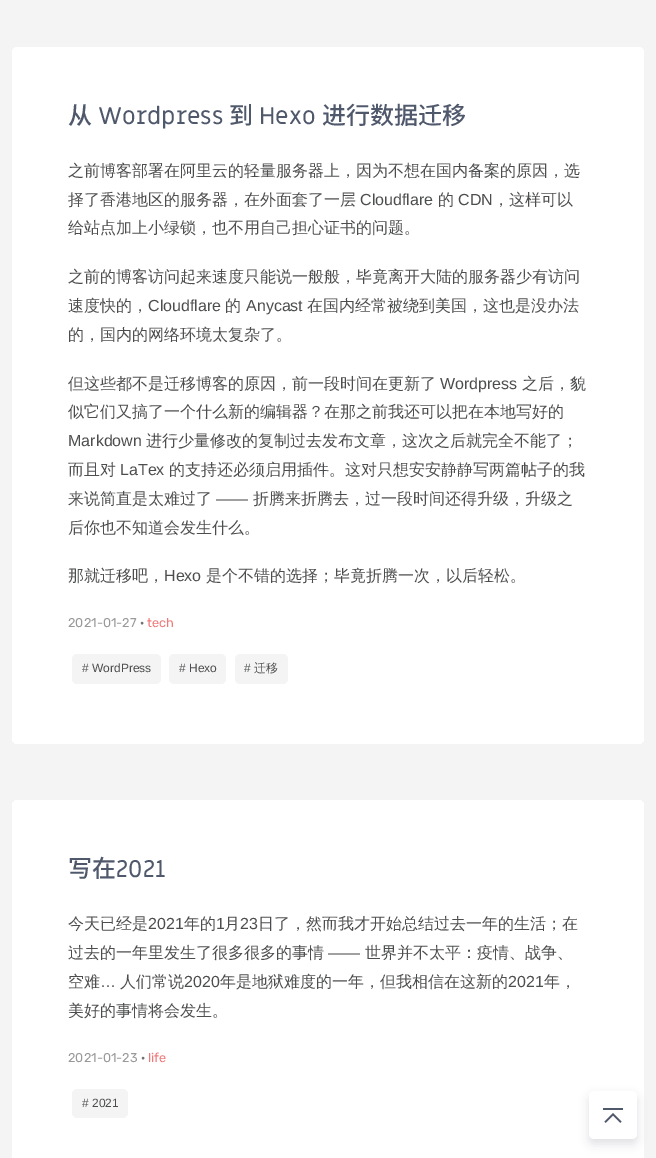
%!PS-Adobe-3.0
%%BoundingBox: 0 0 656 1158
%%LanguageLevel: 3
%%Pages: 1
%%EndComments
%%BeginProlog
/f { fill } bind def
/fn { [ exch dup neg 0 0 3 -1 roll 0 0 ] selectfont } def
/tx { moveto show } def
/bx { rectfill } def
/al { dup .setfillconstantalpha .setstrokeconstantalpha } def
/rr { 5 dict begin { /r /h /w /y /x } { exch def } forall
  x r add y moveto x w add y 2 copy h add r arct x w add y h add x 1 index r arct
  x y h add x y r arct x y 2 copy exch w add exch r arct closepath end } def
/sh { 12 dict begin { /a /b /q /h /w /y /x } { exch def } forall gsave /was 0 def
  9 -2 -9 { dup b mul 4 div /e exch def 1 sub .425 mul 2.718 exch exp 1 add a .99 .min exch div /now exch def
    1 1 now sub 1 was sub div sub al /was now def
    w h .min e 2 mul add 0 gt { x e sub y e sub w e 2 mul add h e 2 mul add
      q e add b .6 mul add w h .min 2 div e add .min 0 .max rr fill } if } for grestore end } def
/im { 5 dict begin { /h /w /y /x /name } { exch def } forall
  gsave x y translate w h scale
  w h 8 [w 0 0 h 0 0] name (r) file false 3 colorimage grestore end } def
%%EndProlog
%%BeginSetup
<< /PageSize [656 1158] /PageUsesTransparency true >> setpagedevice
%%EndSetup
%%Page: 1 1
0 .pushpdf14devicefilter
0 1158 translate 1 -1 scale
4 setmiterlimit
0.957 setgray
0 0 656 1158 bx
1 setgray
12 47 632 697 5 rr f
/NotoSansCJKSC-Medium 24 fn
0.314 0.349 0.424 setrgbcolor
(从) 68 124 tx
/MiriamLibre-Regular 24 fn
(Wordpress) 98 124 tx
/NotoSansCJKSC-Medium 24 fn
(到) 229 124 tx
/MiriamLibre-Regular 24 fn
(Hexo) 259 124 tx
/NotoSansCJKSC-Medium 24 fn
(进行数据迁移) 322 124 tx
/WenQuanYiZenHei-Medium 16 fn
0.298 0.302 0.306 setrgbcolor
(之前博客部署在阿里云的轻量服务器上，因为不想在国内备案的原因，选) 68 176 tx
(择了香港地区的服务器，在外面套了一层) 68 205 tx
/LiberationSans-Regular 16 fn
(Cloudflare) 360 205 tx
/WenQuanYiZenHei-Medium 16 fn
(的) 438 205 tx
/LiberationSans-Regular 16 fn
(CDN) 458 205 tx
/WenQuanYiZenHei-Medium 16 fn
(，这样可以) 493 205 tx
(给站点加上小绿锁，也不用自己担心证书的问题。) 68 233 tx
(之前的博客访问起来速度只能说一般般，毕竟离开大陆的服务器少有访问) 68 282 tx
(速度快的，) 68 311 tx
/LiberationSans-Regular 16 fn
(Cloudflare) 148 311 tx
/WenQuanYiZenHei-Medium 16 fn
(的) 225 311 tx
/LiberationSans-Regular 16 fn
(Anycast) 246 311 tx
/WenQuanYiZenHei-Medium 16 fn
(在国内经常被绕到美国，这也是没办法) 307 311 tx
(的，国内的网络环境太复杂了。) 68 340 tx
(但这些都不是迁移博客的原因，前一段时间在更新了) 68 389 tx
/LiberationSans-Regular 16 fn
(Wordpress) 440 389 tx
/WenQuanYiZenHei-Medium 16 fn
(之后，貌) 522 389 tx
(似它们又搞了一个什么新的编辑器？在那之前我还可以把在本地写好的) 68 417 tx
/LiberationSans-Regular 16 fn
(Markdown) 68 446 tx
/WenQuanYiZenHei-Medium 16 fn
(进行少量修改的复制过去发布文章，这次之后就完全不能了；) 146 446 tx
(而且对) 68 475 tx
/LiberationSans-Regular 16 fn
(LaTex) 120 475 tx
/WenQuanYiZenHei-Medium 16 fn
(的支持还必须启用插件。这对只想安安静静写两篇帖子的我) 169 475 tx
(来说简直是太难过了) 68 504 tx
/LiberationSans-Regular 16 fn
(——) 216 504 tx
/WenQuanYiZenHei-Medium 16 fn
(折腾来折腾去，过一段时间还得升级，升级之) 253 504 tx
(后你也不知道会发生什么。) 68 533 tx
(那就迁移吧，) 68 581 tx
/LiberationSans-Regular 16 fn
(Hexo) 164 581 tx
/WenQuanYiZenHei-Medium 16 fn
(是个不错的选择；毕竟折腾一次，以后轻松。) 206 581 tx
/Rubik-Regular 12.75 fn
0.6 setgray
(2021-01-27) 68 627 tx
0.439 0.443 0.443 setrgbcolor
(·) 140 627 tx
0.937 0.475 0.475 setrgbcolor
(tech) 147 627 tx
0.957 setgray
72 654 89 30 5 rr f
/LiberationSans-Regular 12 fn
0.298 0.302 0.306 setrgbcolor
(# WordPress) 82 672 tx
0.957 setgray
169 654 57 30 5 rr f
0.298 0.302 0.306 setrgbcolor
(# Hexo) 179 672 tx
0.957 setgray
235 654 53 30 5 rr f
0.298 0.302 0.306 setrgbcolor
(#) 244 672 tx
/WenQuanYiZenHei-Medium 12 fn
(迁移) 254 672 tx
1 setgray
12 800 632 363 5 rr f
/NotoSansCJKSC-Medium 24 fn
0.314 0.349 0.424 setrgbcolor
(写在) 68 877 tx
/MiriamLibre-Regular 24 fn
(2021) 116 877 tx
/WenQuanYiZenHei-Medium 16 fn
0.298 0.302 0.306 setrgbcolor
(今天已经是) 68 929 tx
/LiberationSans-Regular 16 fn
(2021) 148 929 tx
/WenQuanYiZenHei-Medium 16 fn
(年的) 184 929 tx
/LiberationSans-Regular 16 fn
(1) 216 929 tx
/WenQuanYiZenHei-Medium 16 fn
(月) 224 929 tx
/LiberationSans-Regular 16 fn
(23) 240 929 tx
/WenQuanYiZenHei-Medium 16 fn
(日了，然而我才开始总结过去一年的生活；在) 258 929 tx
(过去的一年里发生了很多很多的事情) 68 958 tx
/LiberationSans-Regular 16 fn
(——) 328 958 tx
/WenQuanYiZenHei-Medium 16 fn
(世界并不太平：疫情、战争、) 365 958 tx
(空难) 68 987 tx
/LiberationSans-Regular 16 fn
(…) 100 987 tx
/WenQuanYiZenHei-Medium 16 fn
(人们常说) 120 987 tx
/LiberationSans-Regular 16 fn
(2020) 184 987 tx
/WenQuanYiZenHei-Medium 16 fn
(年是地狱难度的一年，但我相信在这新的) 220 987 tx
/LiberationSans-Regular 16 fn
(2021) 508 987 tx
/WenQuanYiZenHei-Medium 16 fn
(年，) 544 987 tx
(美好的事情将会发生。) 68 1016 tx
/Rubik-Regular 12.75 fn
0.6 setgray
(2021-01-23) 68 1062 tx
0.439 0.443 0.443 setrgbcolor
(·) 141 1062 tx
0.937 0.475 0.475 setrgbcolor
(life) 148 1062 tx
0.957 setgray
72 1089 56 29 5 rr f
/LiberationSans-Regular 12 fn
0.298 0.302 0.306 setrgbcolor
(# 2021) 82 1107 tx
0.188 0.216 0.259 setrgbcolor
589 1096 48 48 5 5 0.15 sh
1 setgray
589 1091 48 48 5 rr f
(image0.raw) 603 1108 20 15 im
.poppdf14devicefilter showpage
%%EOF
